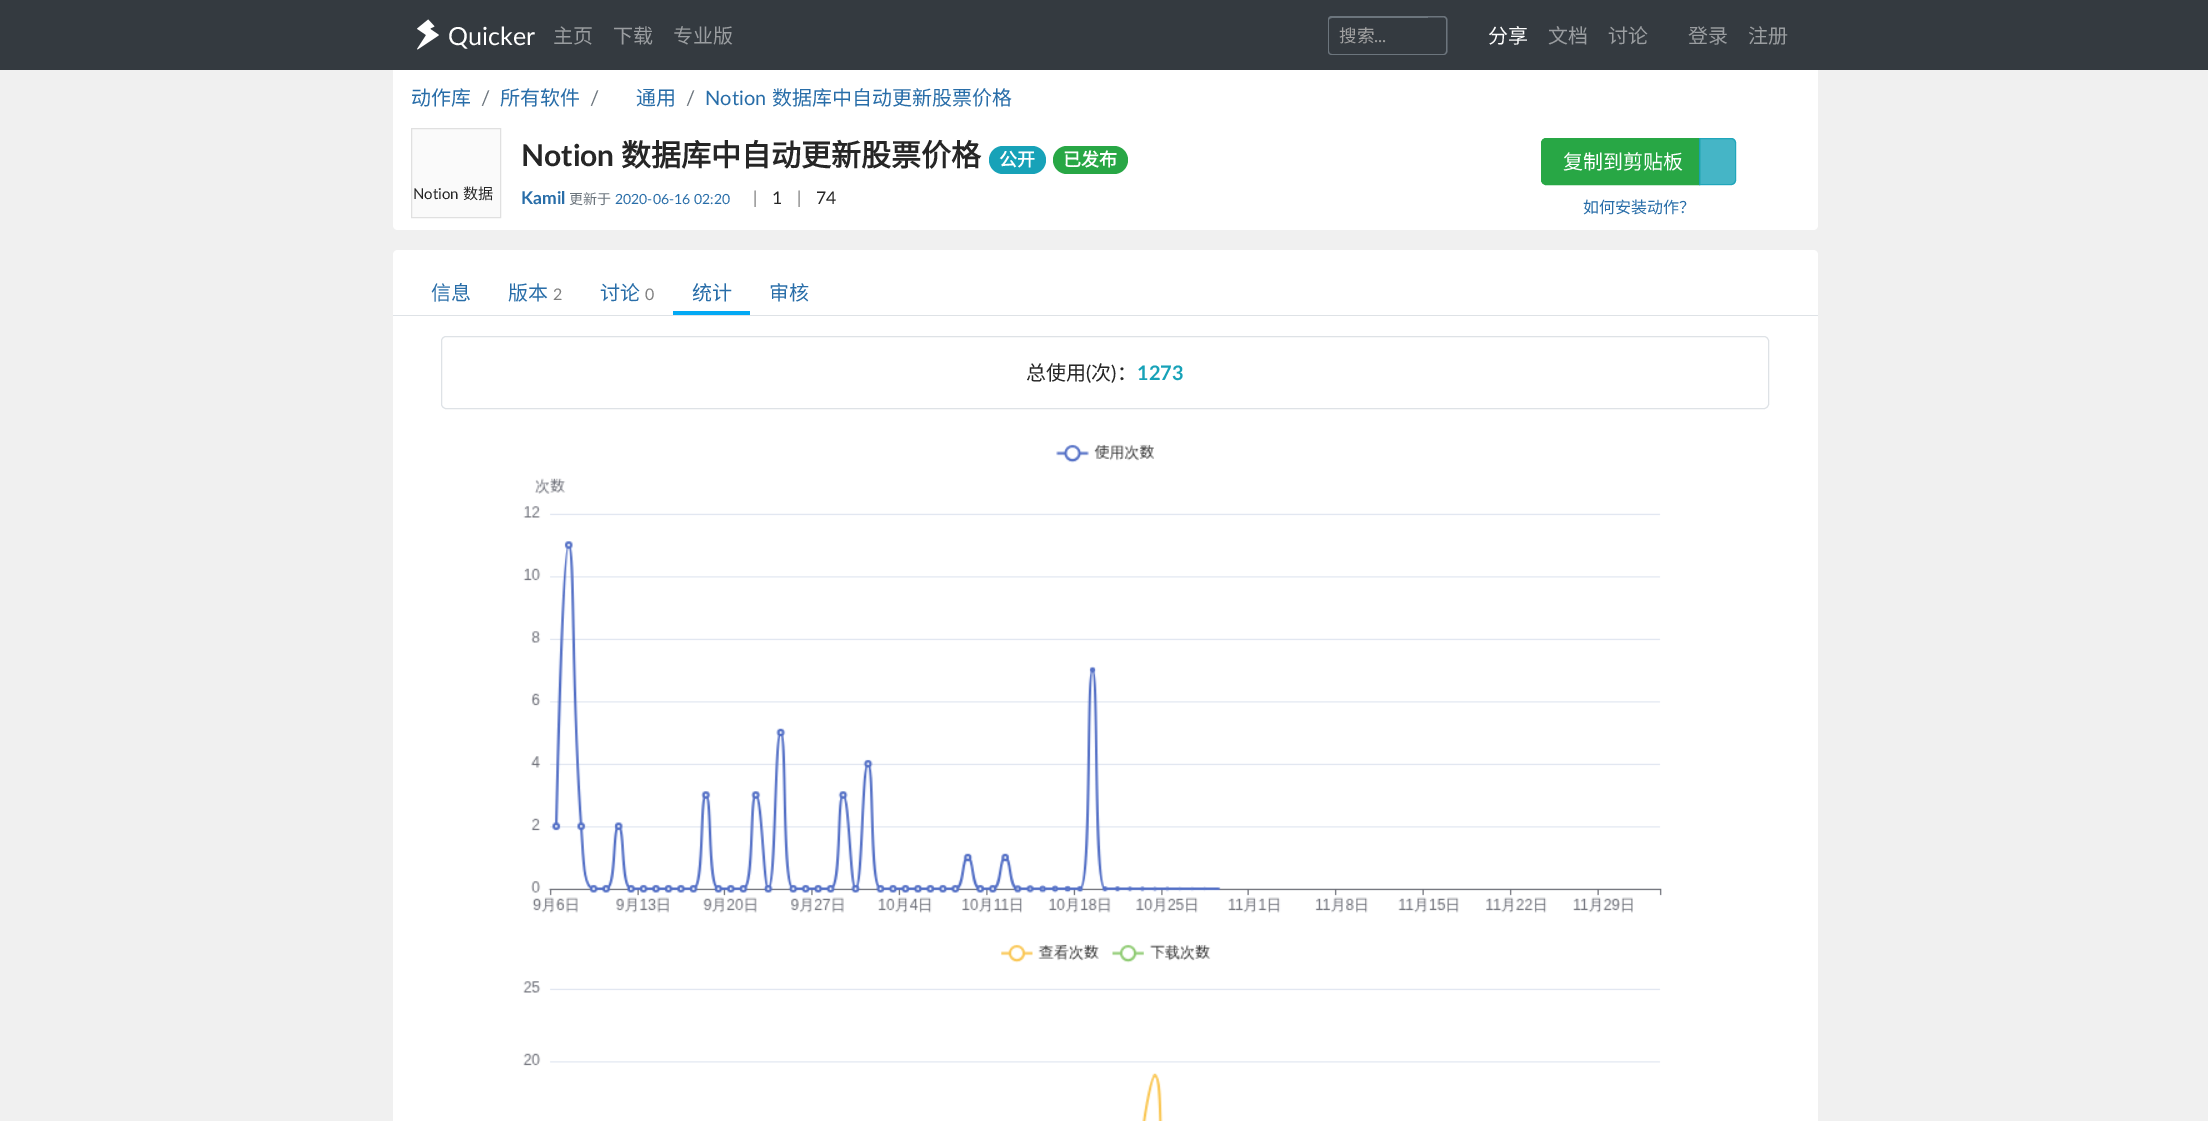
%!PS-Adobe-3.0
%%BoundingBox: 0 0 2208 1121
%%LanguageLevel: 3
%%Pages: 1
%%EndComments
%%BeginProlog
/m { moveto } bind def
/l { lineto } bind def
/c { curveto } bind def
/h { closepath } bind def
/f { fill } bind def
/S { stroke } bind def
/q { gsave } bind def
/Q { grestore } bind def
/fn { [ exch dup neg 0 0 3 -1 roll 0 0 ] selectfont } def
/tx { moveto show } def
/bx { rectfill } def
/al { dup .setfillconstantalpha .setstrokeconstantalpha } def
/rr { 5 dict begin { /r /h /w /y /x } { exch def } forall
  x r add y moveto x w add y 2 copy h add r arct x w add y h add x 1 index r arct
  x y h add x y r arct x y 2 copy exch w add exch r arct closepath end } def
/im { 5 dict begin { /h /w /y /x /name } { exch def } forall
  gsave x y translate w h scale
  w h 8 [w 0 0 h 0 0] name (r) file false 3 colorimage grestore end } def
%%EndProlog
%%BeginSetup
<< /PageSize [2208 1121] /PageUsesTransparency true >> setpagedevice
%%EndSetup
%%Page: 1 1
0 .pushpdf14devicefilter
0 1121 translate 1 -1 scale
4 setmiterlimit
0.941 setgray
0 0 2208 1121 bx
1 setgray
393 68 m 1818 68 l 1818 225 l 1818 228 1816 230 1813 230 c 398 230 l 395 230 393 228 393 225 c h f
0.204 0.227 0.251 setrgbcolor
0 0 2208 70 bx
(image0.raw) 417 19 22 31 im
/Lato-Regular 25 fn
1 setgray
(Quicker) 448 45 tx
/NotoSansCJKSC-Regular 20 fn
0.604 0.616 0.627 setrgbcolor
(主页) 553 43 tx
(下载) 613 43 tx
(专业版) 673 43 tx
0.424 0.459 0.49 setrgbcolor
1332 16 m 1428 16 l 1428 55 l 1332 55 l 1329 55 1328 53 1328 51 c 1328 20 l 1328 18 1329 16 1332 16 c h 1332 18 m 1428 18 l 1428 54 l 1332 54 l 1330 54 1329 53 1329 51 c 1329 20 l 1329 19 1330 18 1332 18 c h eofill
/NotoSansCJKSC-Regular 17.5 fn
0.627 setgray
(搜索) 1339 42 tx
/Lato-Regular 17.5 fn
(...) 1374 42 tx
0.424 0.459 0.49 setrgbcolor
1426 16 m 1443.5 16 l 1445.5 16 1447.5 18 1447.5 20 c 1447.5 51 l 1447.5 53 1445.5 55 1443.5 55 c 1426 55 l h 1426 17.5 m 1443.5 17.5 l 1445 17.5 1446 18.5 1446 20 c 1446 51 l 1446 52.5 1445 54 1443.5 54 c 1426 54 l h eofill
/NotoSansCJKSC-Regular 20 fn
1 setgray
(分享) 1488 43 tx
0.604 0.616 0.627 setrgbcolor
(文档) 1548 43 tx
(讨论) 1608 43 tx
(登录) 1688 43 tx
(注册) 1748 43 tx
0.157 0.427 0.659 setrgbcolor
(动作库) 411 105 tx
/Lato-Regular 20 fn
0.424 0.459 0.49 setrgbcolor
(/) 481 105 tx
/NotoSansCJKSC-Regular 20 fn
0.157 0.427 0.659 setrgbcolor
(所有软件) 500 105 tx
/Lato-Regular 20 fn
0.424 0.459 0.49 setrgbcolor
(/) 590 105 tx
/NotoSansCJKSC-Regular 20 fn
0.157 0.427 0.659 setrgbcolor
(通用) 636 105 tx
/Lato-Regular 20 fn
0.424 0.459 0.49 setrgbcolor
(/) 686 105 tx
0.157 0.427 0.659 setrgbcolor
(Notion) 705 105 tx
/NotoSansCJKSC-Regular 20 fn
(数据库中自动更新股票价格) 772 105 tx
0.98 setgray
411.5 128.5 m 500.5 128.5 l 500.5 217.5 l 411.5 217.5 l h q f Q
0.878 setgray
S
/Lato-Regular 15 fn
0.149 setgray
(Notion) 413 199 tx
/NotoSansCJKSC-Regular 15 fn
(数据) 463 199 tx
/Lato-Bold 30 fn
(Notion) 521 166 tx
/NotoSansCJKSC-Bold 30 fn
(数据库中自动更新股票价格) 621 166 tx
0.09 0.635 0.722 setrgbcolor
989 146 57 28 14 rr f
/NotoSansCJKSC-Bold 18 fn
1 setgray
(公开) 999 166 tx
0.157 0.655 0.271 setrgbcolor
1053 146 75 28 14 rr f
1 setgray
(已发布) 1063 166 tx
/Lato-Bold 17.5 fn
0.157 0.427 0.659 setrgbcolor
(Kamil) 521 204 tx
/NotoSansCJKSC-Regular 14 fn
0.424 0.459 0.49 setrgbcolor
(更新于) 569 204 tx
/Lato-Regular 14 fn
0.157 0.427 0.659 setrgbcolor
(2020-06-16 02:20) 615 204 tx
/Lato-Regular 17.5 fn
0.502 setgray
(|) 753 204 tx
0.149 setgray
(1) 772 204 tx
0.502 setgray
(|) 797 204 tx
0.149 setgray
(74) 816 204 tx
0.157 0.655 0.271 setrgbcolor
1546 138.5 m 1699.5 138.5 l 1699.5 184.5 l 1546 184.5 l 1543.5 184.5 1541.5 182.5 1541.5 180 c 1541.5 143 l 1541.5 140.5 1543.5 138.5 1546 138.5 c h q f Q
S
/NotoSansCJKSC-Regular 20 fn
1 setgray
(复制到剪贴板) 1563 169 tx
0.8 al
0.09 0.635 0.722 setrgbcolor
1699 138 m 1731 138 l 1734 138 1736 140 1736 143 c 1736 180 l 1736 183 1734 185 1731 185 c 1699 185 l h f
1699.5 138.5 m 1731 138.5 l 1733.5 138.5 1735.5 140.5 1735.5 143 c 1735.5 180 l 1735.5 182.5 1733.5 184.5 1731 184.5 c 1699.5 184.5 l h S
/NotoSansCJKSC-Regular 16 fn
1 al
0.157 0.427 0.659 setrgbcolor
(如何安装动作？) 1583 213 tx
1 setgray
398 250 m 1813 250 l 1816 250 1818 252 1818 255 c 1818 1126 l 393 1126 l 393 255 l 393 252 395 250 398 250 c h f
0.871 0.886 0.902 setrgbcolor
393 315 1425 1 bx
/NotoSansCJKSC-Regular 20 fn
0.157 0.427 0.659 setrgbcolor
(信息) 431 300 tx
(版本) 508 300 tx
/Lato-Regular 16 fn
0.502 setgray
(2) 553 300 tx
/NotoSansCJKSC-Regular 20 fn
0.157 0.427 0.659 setrgbcolor
(讨论) 600 300 tx
/Lato-Regular 16 fn
0.502 setgray
(0) 645 300 tx
0.012 0.663 0.957 setrgbcolor
673 311 77 4 bx
/NotoSansCJKSC-Regular 20 fn
0.157 0.427 0.659 setrgbcolor
(统计) 692 300 tx
(审核) 769 300 tx
0.871 0.886 0.902 setrgbcolor
441.5 336.5 1327 72 4.5 rr S
0.149 setgray
(总使用) 1026 380 tx
/Lato-Regular 20 fn
(\() 1086 380 tx
/NotoSansCJKSC-Regular 20 fn
(次) 1091 380 tx
/Lato-Regular 20 fn
(\)) 1111 380 tx
/NotoSansCJKSC-Regular 20 fn
(：) 1117 380 tx
/Lato-Bold 20 fn
0.09 0.635 0.722 setrgbcolor
(1273) 1137 380 tx
(image1.raw) 523 444 1139 677 im
.poppdf14devicefilter showpage
%%EOF
